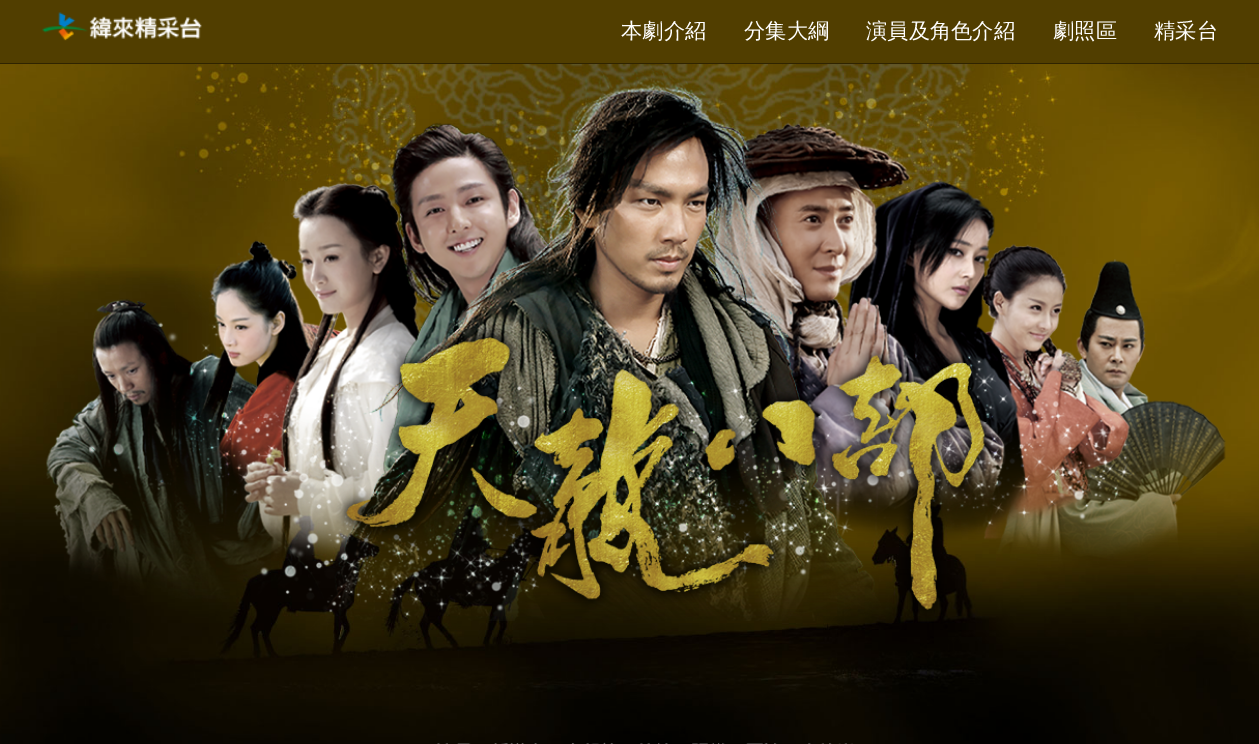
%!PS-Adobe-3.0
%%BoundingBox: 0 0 1259 744
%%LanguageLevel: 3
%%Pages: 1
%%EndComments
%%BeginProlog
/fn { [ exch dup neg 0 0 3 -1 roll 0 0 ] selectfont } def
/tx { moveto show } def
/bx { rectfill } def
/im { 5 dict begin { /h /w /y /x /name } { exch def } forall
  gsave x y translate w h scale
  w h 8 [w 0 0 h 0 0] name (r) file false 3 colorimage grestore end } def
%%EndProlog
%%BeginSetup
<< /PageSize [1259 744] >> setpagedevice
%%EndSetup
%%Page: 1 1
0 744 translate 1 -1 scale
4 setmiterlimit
1 setgray
0 0 1259 744 bx
0.318 0.243 0 setrgbcolor
0 0 1259 63 bx
0.184 0.141 0 setrgbcolor
0 63 1259 1 bx
(image0.raw) 42 12 160 29 im
/WenQuanYiZenHei-Medium 21.25 fn
1 setgray
(本劇介紹) 621 38 tx
(分集大綱) 744 38 tx
(演員及角色介紹) 866 38 tx
(劇照區) 1053 38 tx
(精采台) 1154 38 tx
(image1.raw) 0 64 1259 680 im
(image2.raw) 46 64 1180 680 im
showpage
%%EOF
